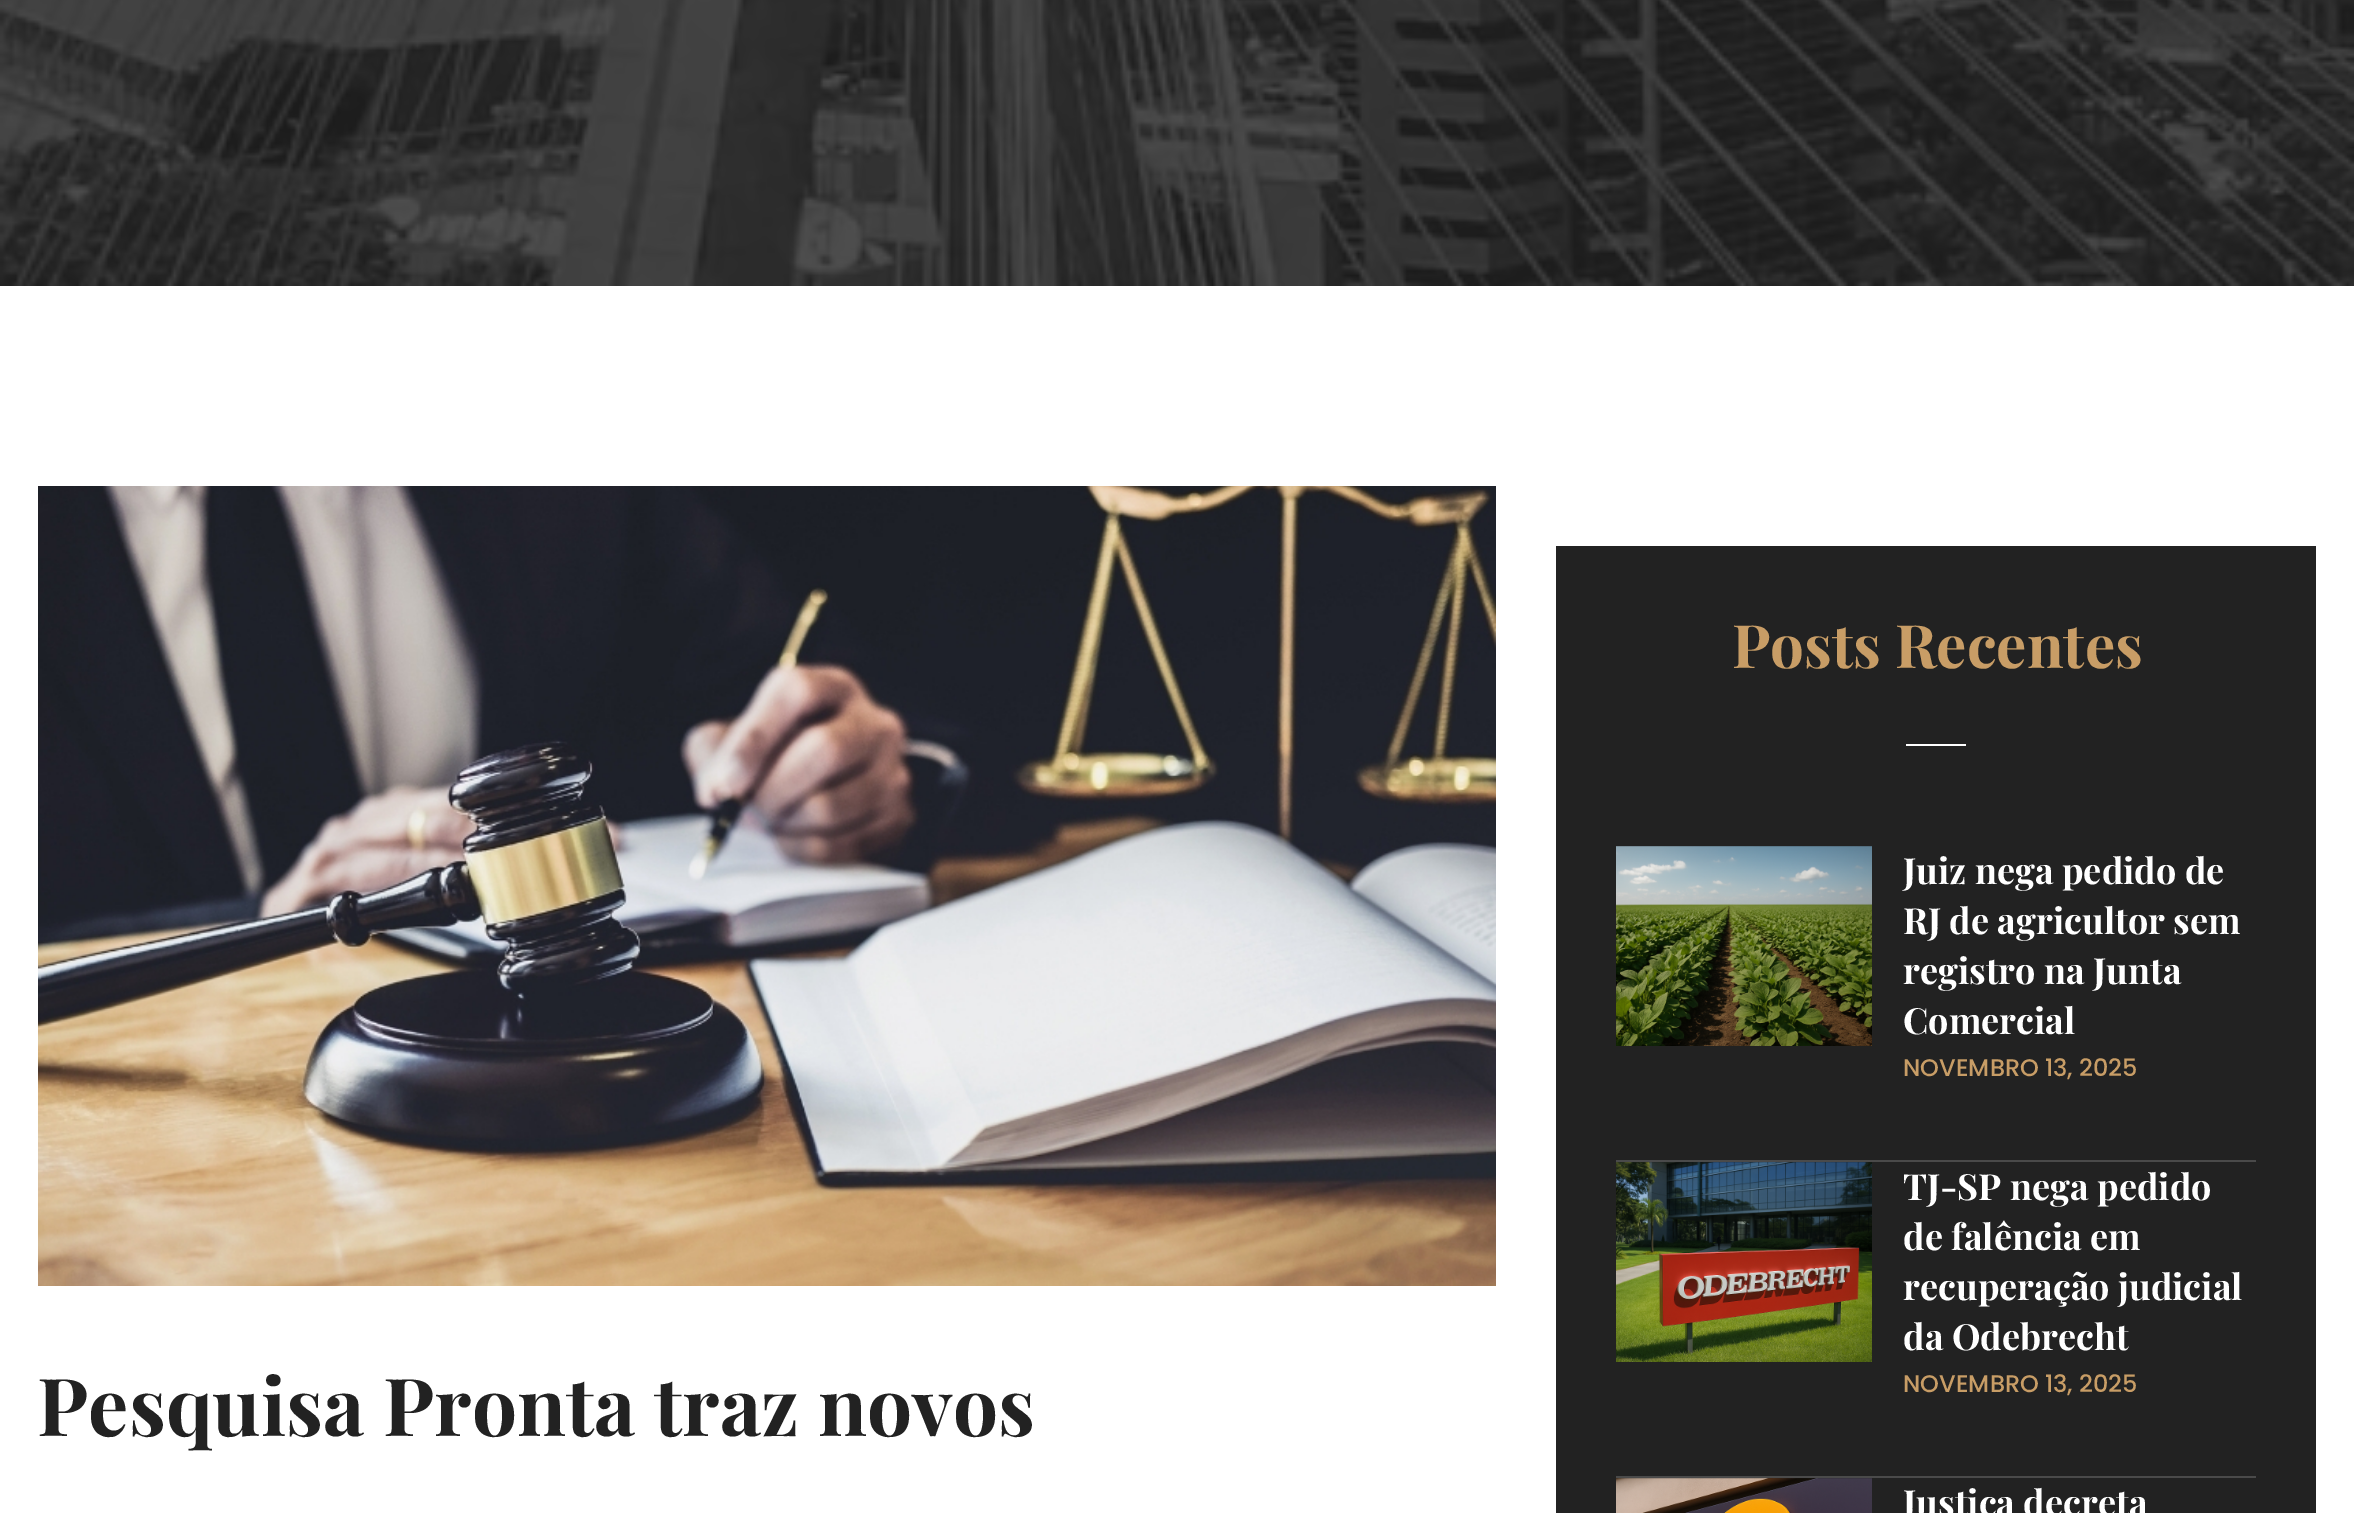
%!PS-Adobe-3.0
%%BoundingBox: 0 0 2354 1513
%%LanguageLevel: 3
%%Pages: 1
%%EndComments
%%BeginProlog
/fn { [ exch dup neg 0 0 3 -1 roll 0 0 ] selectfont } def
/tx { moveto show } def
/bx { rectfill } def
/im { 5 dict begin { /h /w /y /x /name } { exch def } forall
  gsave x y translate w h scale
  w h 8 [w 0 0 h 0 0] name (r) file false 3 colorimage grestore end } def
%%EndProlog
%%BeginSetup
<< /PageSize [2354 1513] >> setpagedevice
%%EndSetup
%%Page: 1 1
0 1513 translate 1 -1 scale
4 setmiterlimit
1 setgray
0 0 2354 1513 bx
(image0.raw) 0 0 2354 286 im
(image1.raw) 38 486 1458 800 im
/PlayfairDisplay-Bold 80 fn
0.133 setgray
(Pesquisa Pronta traz novos) 37 1436 tx
1556 546 760 967 bx
/PlayfairDisplay-Bold 60 fn
0.784 0.616 0.4 setrgbcolor
(Posts Recentes) 1732 668 tx
1 setgray
1906 744 60 2 bx
0.29 setgray
1616 1160 640 2 bx
(image2.raw) 1616 846 256 200 im
/PlayfairDisplay-Bold 36 fn
1 setgray
(Juiz nega pedido de) 1903 884 tx
(RJ de agricultor sem) 1903 934 tx
(registro na Junta) 1903 984 tx
(Comercial) 1903 1034 tx
/Poppins-Medium 24 fn
0.784 0.616 0.4 setrgbcolor
(NOVEMBRO 13, 2025) 1903 1076 tx
0.29 setgray
1616 1476 640 2 bx
(image3.raw) 1616 1162 256 200 im
/PlayfairDisplay-Bold 36 fn
1 setgray
(TJ-SP nega pedido) 1903 1200 tx
(de falência em) 1903 1250 tx
(recuperação judicial) 1903 1300 tx
(da Odebrecht) 1903 1350 tx
/Poppins-Medium 24 fn
0.784 0.616 0.4 setrgbcolor
(NOVEMBRO 13, 2025) 1903 1392 tx
(image4.raw) 1616 1478 256 35 im
/PlayfairDisplay-Bold 36 fn
1 setgray
(Justiça decreta) 1903 1516 tx
showpage
%%EOF
